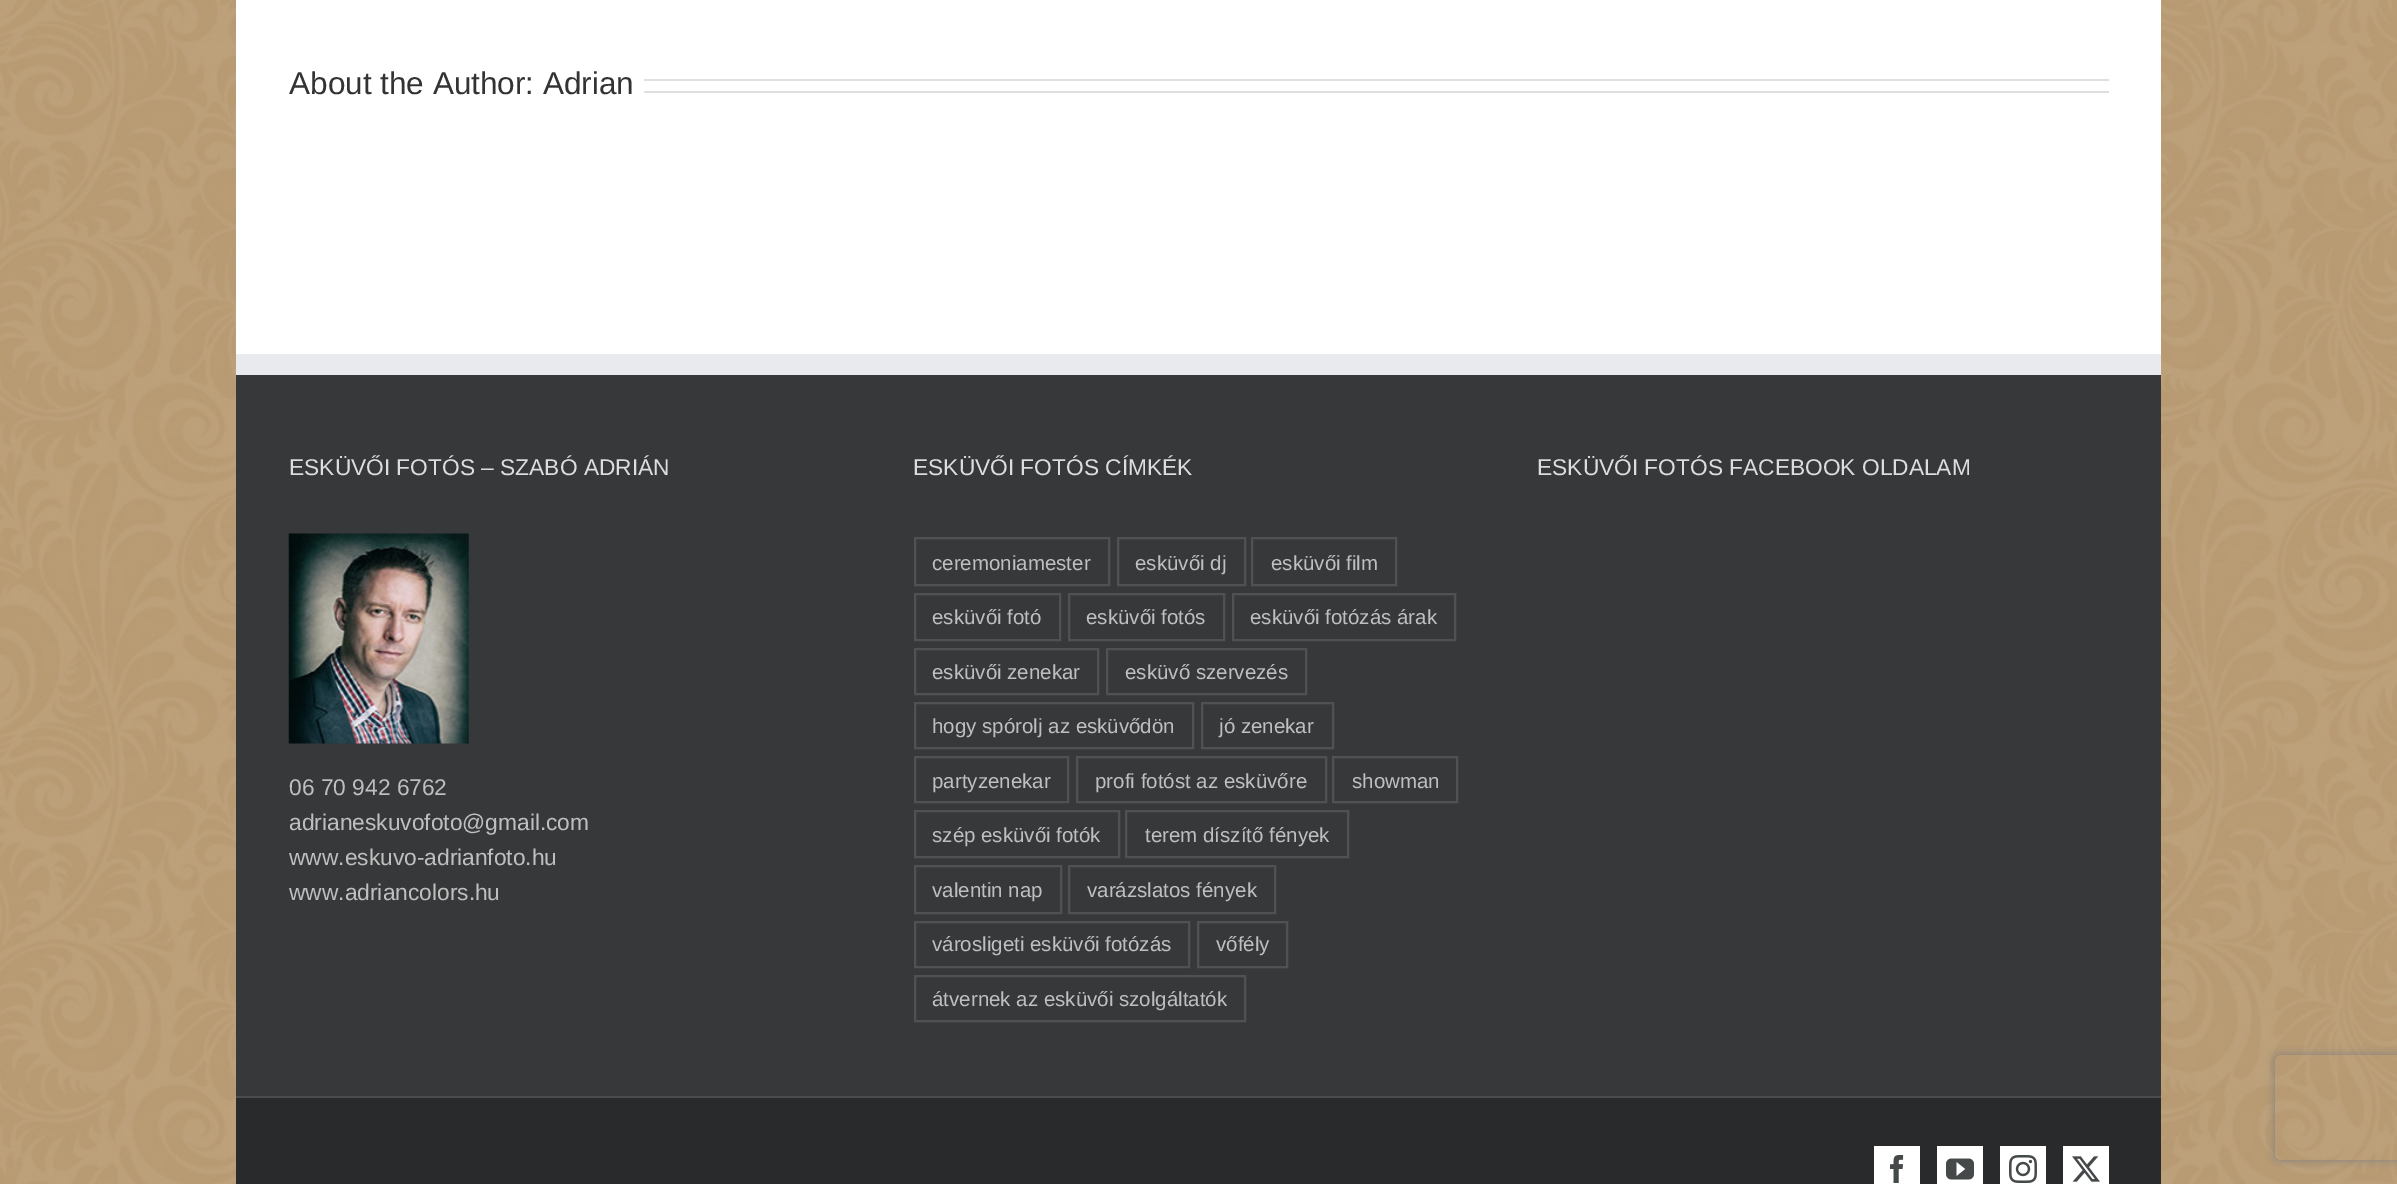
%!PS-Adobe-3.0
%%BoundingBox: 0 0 2397 1184
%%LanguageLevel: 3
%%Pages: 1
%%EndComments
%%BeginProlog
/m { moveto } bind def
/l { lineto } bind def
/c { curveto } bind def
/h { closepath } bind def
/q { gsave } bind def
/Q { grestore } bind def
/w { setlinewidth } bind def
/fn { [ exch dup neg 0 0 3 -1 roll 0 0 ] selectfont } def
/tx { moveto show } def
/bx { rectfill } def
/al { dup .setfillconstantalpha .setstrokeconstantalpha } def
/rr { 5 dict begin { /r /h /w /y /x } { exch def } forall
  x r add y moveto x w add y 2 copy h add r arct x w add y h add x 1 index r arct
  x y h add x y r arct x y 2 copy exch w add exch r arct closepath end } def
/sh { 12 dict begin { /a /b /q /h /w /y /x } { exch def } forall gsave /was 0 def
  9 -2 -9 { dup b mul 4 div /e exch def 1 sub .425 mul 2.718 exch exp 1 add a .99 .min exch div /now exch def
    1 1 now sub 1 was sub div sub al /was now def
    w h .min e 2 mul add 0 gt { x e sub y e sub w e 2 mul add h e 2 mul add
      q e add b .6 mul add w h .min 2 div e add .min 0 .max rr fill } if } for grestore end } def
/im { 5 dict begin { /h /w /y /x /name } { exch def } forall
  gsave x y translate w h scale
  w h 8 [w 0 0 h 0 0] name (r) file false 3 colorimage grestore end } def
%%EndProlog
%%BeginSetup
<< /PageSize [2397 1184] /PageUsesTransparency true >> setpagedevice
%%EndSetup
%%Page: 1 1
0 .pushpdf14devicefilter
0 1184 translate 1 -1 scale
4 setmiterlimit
1 setgray
0 0 2397 1184 bx
(image0.raw) 0 0 2397 1184 im
236 0 1925 354 bx
/LiberationSans-Regular 31.5 fn
0.2 setgray
(About the Author: Adrian) 289 94 tx
0.878 0.871 0.871 setrgbcolor
644 79 1465 2 bx
644 91 1465 2 bx
0.212 0.22 0.224 setrgbcolor
236 375 1925 721 bx
0.914 0.918 0.933 setrgbcolor
236 354 1925 21 bx
/LiberationSans-Regular 22.75 fn
0.867 setgray
(ESKÜVŐI FOTÓS – SZABÓ ADRIÁN) 289 475 tx
(image1.raw) 288 533 181 211 im
0.749 setgray
(06 70 942 6762) 289 795 tx
(adrianeskuvofoto@gmail.com) 289 830 tx
(www.eskuvo-adrianfoto.hu) 289 865 tx
(www.adriancolors.hu) 289 900 tx
0.867 setgray
(ESKÜVŐI FOTÓS CÍMKÉK) 913 475 tx
0.314 0.318 0.322 setrgbcolor
2 w
915 538 194 47 rectstroke
/LiberationSans-Regular 20.5 fn
0.749 setgray
(ceremoniamester) 932 570 tx
0.314 0.318 0.322 setrgbcolor
1118 538 127 47 rectstroke
0.749 setgray
(esküvői dj) 1135 570 tx
0.314 0.318 0.322 setrgbcolor
1252 538 144 47 rectstroke
0.749 setgray
(esküvői film) 1271 570 tx
0.314 0.318 0.322 setrgbcolor
915 594 145 46 rectstroke
0.749 setgray
(esküvői fotó) 932 624 tx
0.314 0.318 0.322 setrgbcolor
1069 594 155 46 rectstroke
0.749 setgray
(esküvői fotós) 1086 624 tx
0.314 0.318 0.322 setrgbcolor
1233 594 222 46 rectstroke
0.749 setgray
(esküvői fotózás árak) 1250 624 tx
0.314 0.318 0.322 setrgbcolor
915 649 183 45 rectstroke
0.749 setgray
(esküvői zenekar) 932 679 tx
0.314 0.318 0.322 setrgbcolor
1107 649 199 45 rectstroke
0.749 setgray
(esküvő szervezés) 1125 679 tx
0.314 0.318 0.322 setrgbcolor
915 703 278 45 rectstroke
0.749 setgray
(hogy spórolj az esküvődön) 932 733 tx
0.314 0.318 0.322 setrgbcolor
1202 703 131 45 rectstroke
0.749 setgray
(jó zenekar) 1219 733 tx
0.314 0.318 0.322 setrgbcolor
915 757 153 45 rectstroke
0.749 setgray
(partyzenekar) 932 788 tx
0.314 0.318 0.322 setrgbcolor
1077 757 249 45 rectstroke
0.749 setgray
(profi fotóst az esküvőre) 1095 788 tx
0.314 0.318 0.322 setrgbcolor
1333 757 124 45 rectstroke
0.749 setgray
(showman) 1352 788 tx
0.314 0.318 0.322 setrgbcolor
915 811 204 46 rectstroke
0.749 setgray
(szép esküvői fotók) 932 842 tx
0.314 0.318 0.322 setrgbcolor
1126 811 222 46 rectstroke
0.749 setgray
(terem díszítő fények) 1145 842 tx
0.314 0.318 0.322 setrgbcolor
915 866 146 47 rectstroke
0.749 setgray
(valentin nap) 932 897 tx
0.314 0.318 0.322 setrgbcolor
1069 866 206 47 rectstroke
0.749 setgray
(varázslatos fények) 1087 897 tx
0.314 0.318 0.322 setrgbcolor
915 922 274 45 rectstroke
0.749 setgray
(városligeti esküvői fotózás) 932 951 tx
0.314 0.318 0.322 setrgbcolor
1198 922 89 45 rectstroke
0.749 setgray
(vőfély) 1216 951 tx
0.314 0.318 0.322 setrgbcolor
915 976 330 45 rectstroke
0.749 setgray
(átvernek az esküvői szolgáltatók) 932 1006 tx
/LiberationSans-Regular 22.75 fn
0.867 setgray
(ESKÜVŐI FOTÓS FACEBOOK OLDALAM) 1537 475 tx
0.157 0.165 0.169 setrgbcolor
236 1098 1925 86 bx
0.294 0.298 0.302 setrgbcolor
236 1096 1925 2 bx
1 setgray
1874 1146 46 38 bx
(image2.raw) 1890 1155 14 28 im
1937 1146 46 38 bx
(image3.raw) 1946 1158 28 22 im
2000 1146 46 38 bx
(image4.raw) 2009 1155 28 28 im
2063 1146 46 38 bx
(image5.raw) 2072 1156 28 26 im
q
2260 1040 m 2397 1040 l 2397 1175 l 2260 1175 l h 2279 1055 m 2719 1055 l 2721 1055 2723 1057 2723 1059 c 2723 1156 l 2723 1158 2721 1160 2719 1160 c 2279 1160 l 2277 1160 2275 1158 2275 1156 c 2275 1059 l 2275 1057 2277 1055 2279 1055 c h eoclip newpath
0.502 setgray
2275 1055 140 105 4 4.5 1 sh
Q
.poppdf14devicefilter showpage
%%EOF
